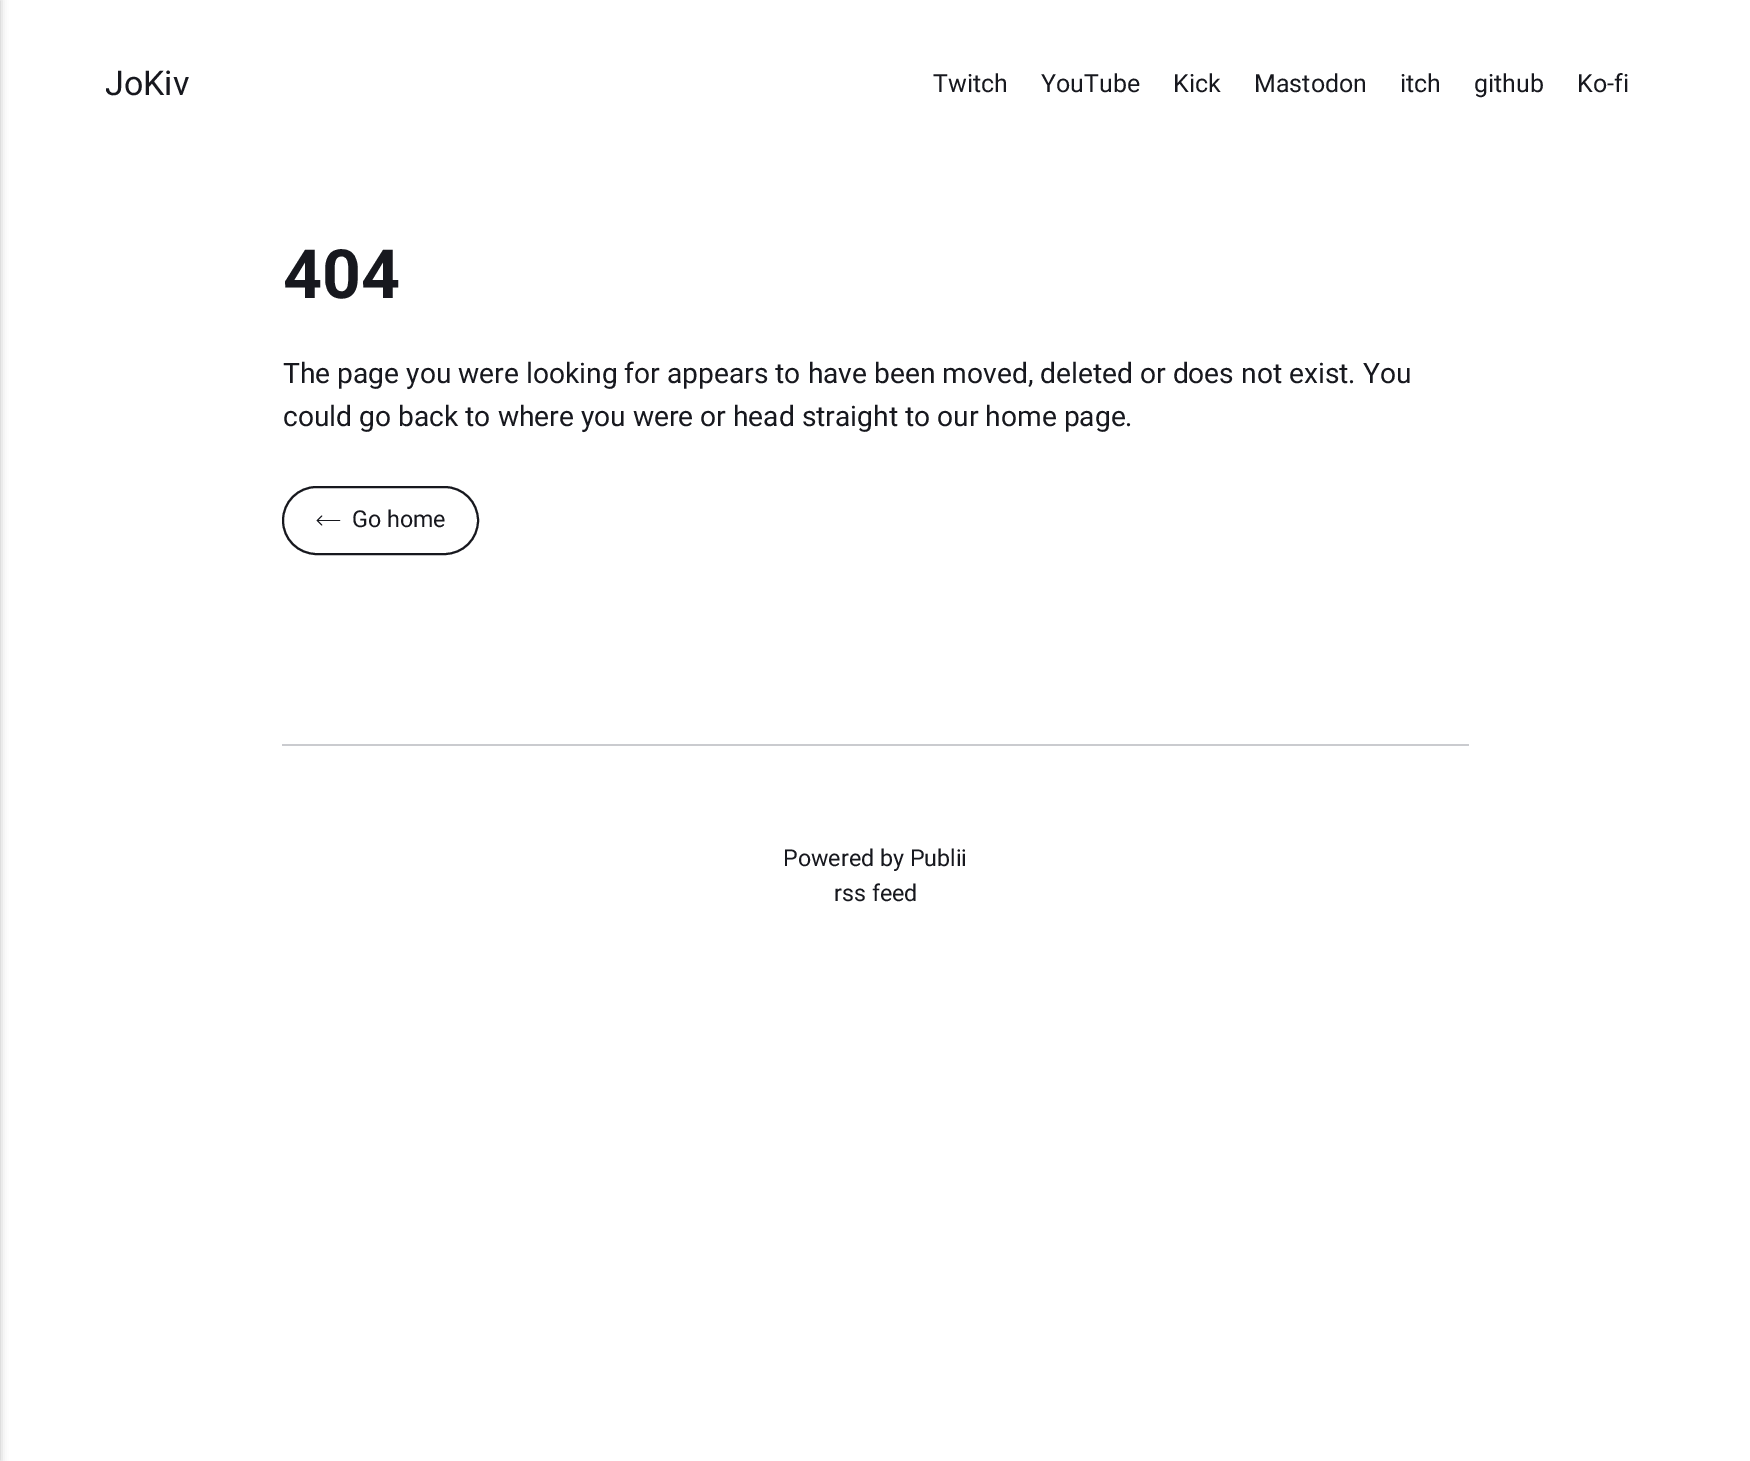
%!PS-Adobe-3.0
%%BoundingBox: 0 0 1750 1461
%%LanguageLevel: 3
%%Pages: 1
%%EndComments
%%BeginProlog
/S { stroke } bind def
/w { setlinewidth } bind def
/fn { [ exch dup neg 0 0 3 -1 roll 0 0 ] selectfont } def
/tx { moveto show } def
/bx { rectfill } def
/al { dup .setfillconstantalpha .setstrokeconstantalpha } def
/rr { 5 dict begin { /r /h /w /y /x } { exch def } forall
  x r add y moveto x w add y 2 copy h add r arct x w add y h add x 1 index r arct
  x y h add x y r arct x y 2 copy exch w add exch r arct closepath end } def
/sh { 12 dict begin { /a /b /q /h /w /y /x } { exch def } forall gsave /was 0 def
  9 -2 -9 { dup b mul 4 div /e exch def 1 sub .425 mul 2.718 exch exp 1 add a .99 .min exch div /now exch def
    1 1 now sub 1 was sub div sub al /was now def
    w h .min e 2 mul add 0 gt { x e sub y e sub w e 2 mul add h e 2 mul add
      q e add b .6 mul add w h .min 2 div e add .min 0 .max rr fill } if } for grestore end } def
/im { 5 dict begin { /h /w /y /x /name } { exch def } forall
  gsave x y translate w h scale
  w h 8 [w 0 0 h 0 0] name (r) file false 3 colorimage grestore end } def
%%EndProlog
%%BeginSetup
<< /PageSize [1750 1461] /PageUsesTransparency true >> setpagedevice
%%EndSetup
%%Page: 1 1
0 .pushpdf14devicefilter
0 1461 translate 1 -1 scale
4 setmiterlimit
1 setgray
0 0 1750 1461 bx
0 setgray
-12 0 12 1461 0 4 0.25 sh
/Roboto-Regular 34 fn
0.09 0.094 0.118 setrgbcolor
(JoKiv) 105 95 tx
/Roboto-Regular 25 fn
(Twitch) 933 92 tx
(YouTube) 1041 92 tx
(Kick) 1173 92 tx
(Mastodon) 1254 92 tx
(itch) 1400 92 tx
(github) 1474 92 tx
(Ko-fi) 1577 92 tx
/Roboto-Bold 68 fn
(404) 283 298 tx
/Roboto-Regular 28.2 fn
(The page you were looking for appears to have been moved, deleted or does not exist. You) 283 383 tx
(could go back to where you were or head straight to our home page.) 283 426 tx
2 w
283 487 195 67 33.5 rr S
(image0.raw) 316 515 25 11 im
/Roboto-Regular 23.25 fn
(Go home) 352 527 tx
0.792 0.796 0.812 setrgbcolor
282 744 1187 2 bx
0.09 0.094 0.118 setrgbcolor
(Powered by Publii) 783 866 tx
(rss feed) 834 901 tx
.poppdf14devicefilter showpage
%%EOF
